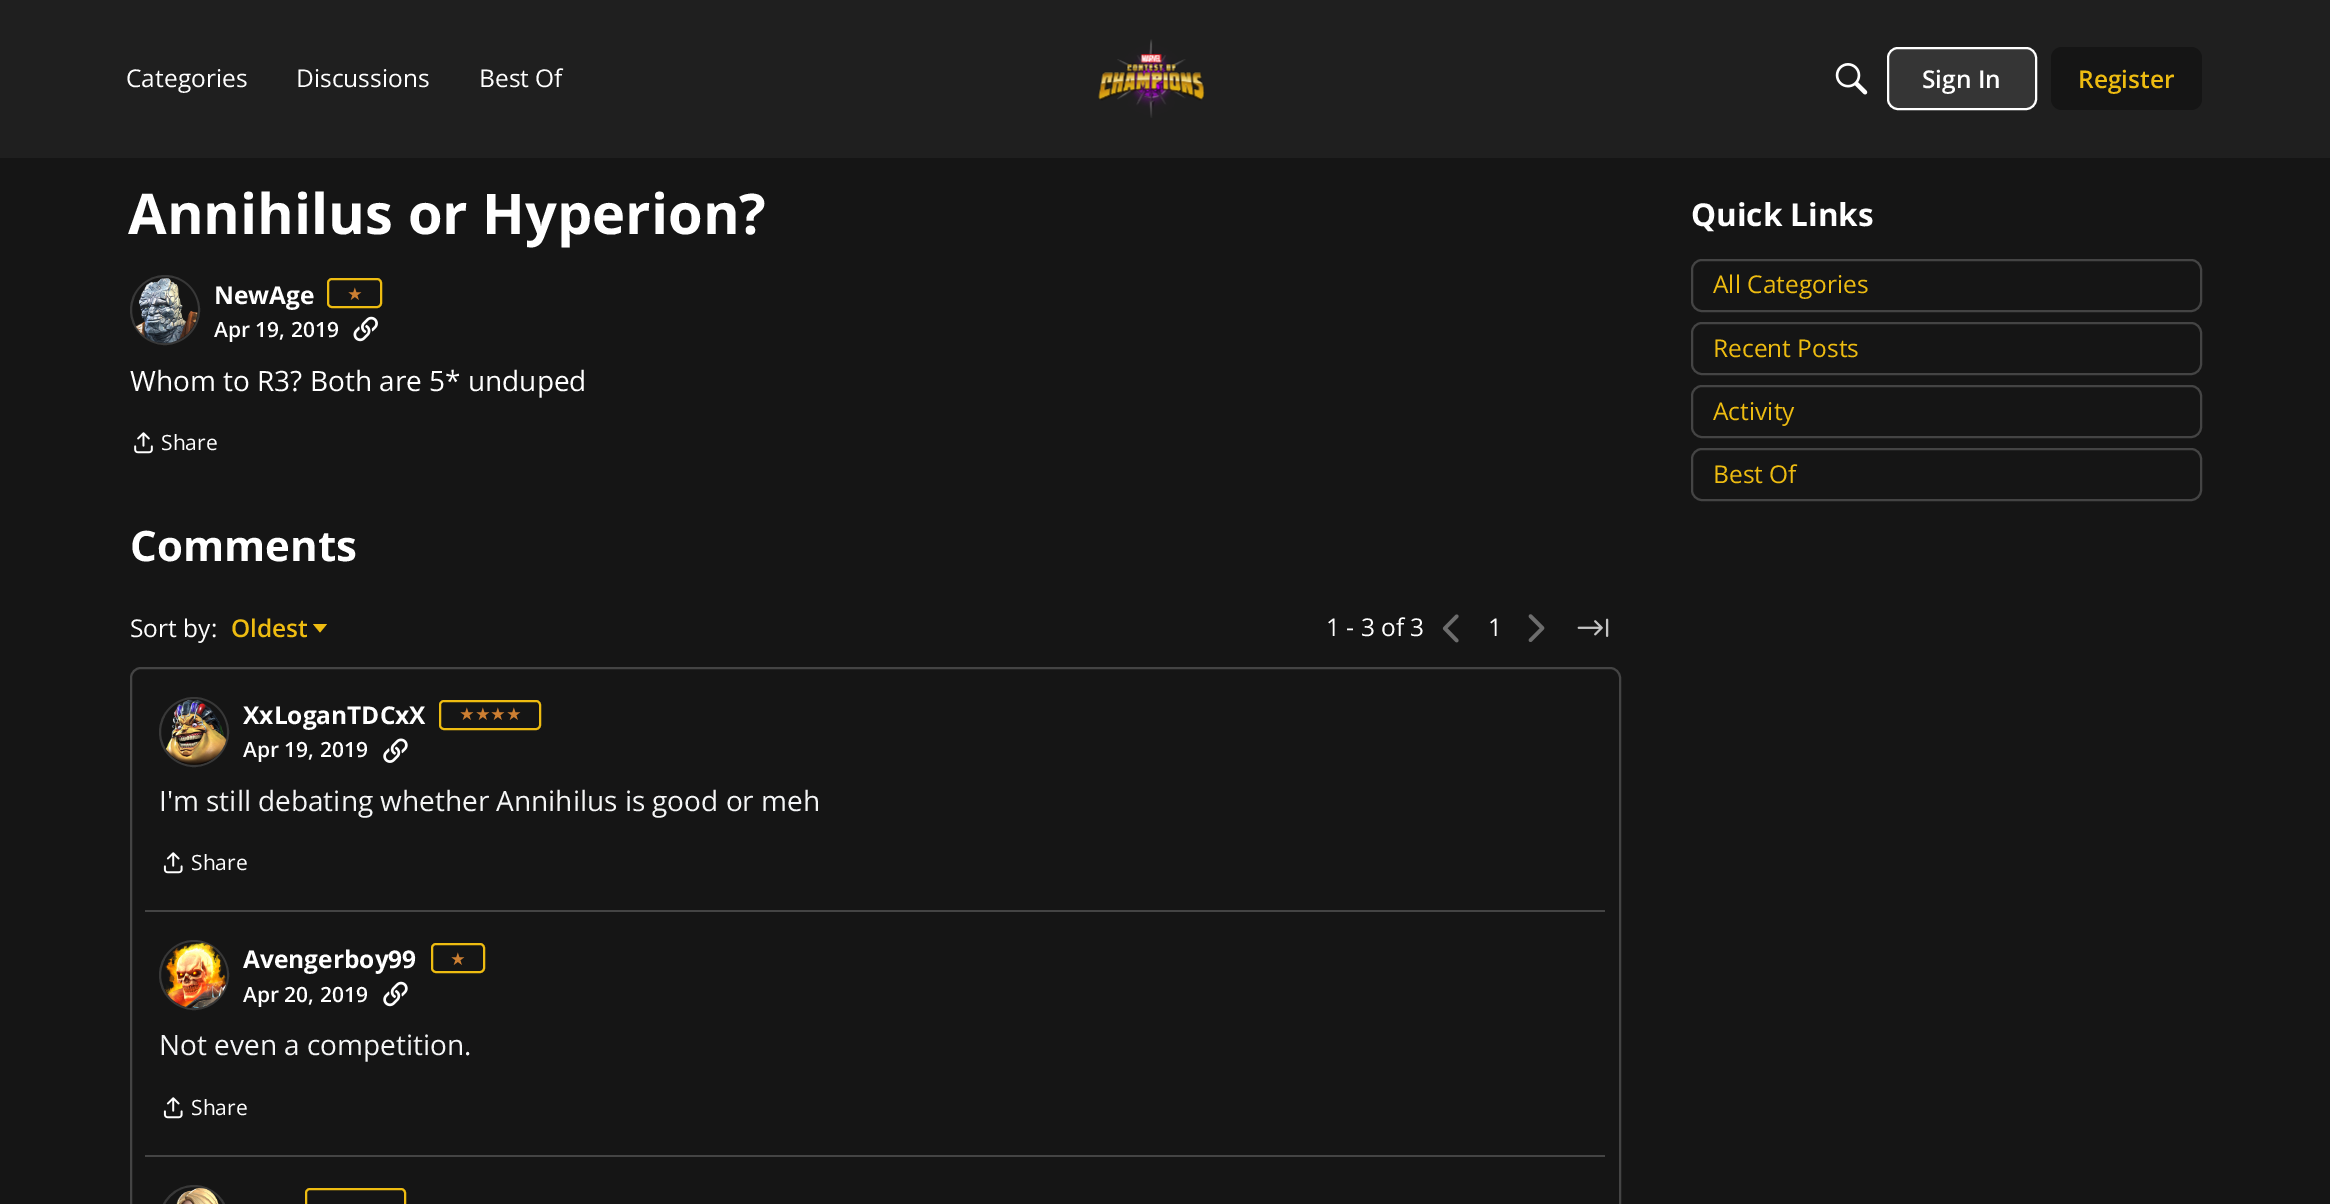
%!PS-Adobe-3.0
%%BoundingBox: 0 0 2330 1204
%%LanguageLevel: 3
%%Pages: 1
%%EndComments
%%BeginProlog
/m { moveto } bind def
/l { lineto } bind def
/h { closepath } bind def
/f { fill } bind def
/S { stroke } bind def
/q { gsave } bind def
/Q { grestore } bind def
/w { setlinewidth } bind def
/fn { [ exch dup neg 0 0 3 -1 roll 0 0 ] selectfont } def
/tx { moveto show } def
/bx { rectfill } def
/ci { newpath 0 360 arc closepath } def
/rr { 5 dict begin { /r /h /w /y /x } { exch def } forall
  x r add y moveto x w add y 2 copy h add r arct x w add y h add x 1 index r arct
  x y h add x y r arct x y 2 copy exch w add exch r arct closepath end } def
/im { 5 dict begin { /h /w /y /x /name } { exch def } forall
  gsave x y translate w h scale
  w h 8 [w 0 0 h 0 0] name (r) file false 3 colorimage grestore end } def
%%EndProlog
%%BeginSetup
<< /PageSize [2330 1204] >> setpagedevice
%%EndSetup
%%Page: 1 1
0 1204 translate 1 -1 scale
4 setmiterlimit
0.082 setgray
0 0 2330 1204 bx
0.122 setgray
0 0 2330 158 bx
/OpenSans-Regular 24.5 fn
1 setgray
(Categories) 126 87 tx
(Discussions) 296 87 tx
(Best Of) 479 87 tx
(image0.raw) 1098 39 107 79 im
(image1.raw) 1835 63 33 32 im
0.208 setgray
1888 48 148 61 10 rr q f Q
1 setgray
2 w
S
/OpenSans-SemiBold 24.5 fn
(Sign In) 1922 88 tx
0.082 setgray
2051 47 151 63 11 rr f
0.933 0.737 0.067 setrgbcolor
(Register) 2078 88 tx
/OpenSans-Bold 56 fn
1 setgray
(Annihilus or Hyperion?) 128 234 tx
0.22 setgray
165 310 34 ci S
(image2.raw) 135 278 63 65 im
/OpenSans-Bold 24.5 fn
1 setgray
(NewAge) 214 304 tx
0.933 0.737 0.067 setrgbcolor
328 279 53 28 4 rr S
/DejaVuSans-Regular 17.5 fn
0.804 0.498 0.196 setrgbcolor
(★) 347 300 tx
/OpenSans-SemiBold 21 fn
1 setgray
(Apr 19, 2019) 214 337 tx
(image3.raw) 353 316 25 26 im
/OpenSans-Regular 28 fn
(Whom to R3? Both are 5* unduped) 130 391 tx
(image4.raw) 134 432 19 22 im
/OpenSans-Regular 21 fn
(Share) 161 450 tx
/OpenSans-Bold 42 fn
(Comments) 130 561 tx
/OpenSans-Regular 24.5 fn
(Sort by:) 130 637 tx
/OpenSans-SemiBold 24.5 fn
0.933 0.737 0.067 setrgbcolor
(Oldest) 231 637 tx
313 624 m 327 624 l 320 632.5 l h f
/OpenSans-Regular 24.5 fn
1 setgray
(1 - 3 of 3) 1326 636 tx
(image5.raw) 1442 614 17 29 im
(1) 1488 636 tx
(image6.raw) 1528 614 17 28 im
(image7.raw) 1577 618 32 19 im
0.267 setgray
131 668 1489 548 10 rr S
0.22 setgray
194 732 34 ci S
(image8.raw) 165 699 62 66 im
/OpenSans-Bold 24.5 fn
1 setgray
(XxLoganTDCxX) 243 724 tx
0.933 0.737 0.067 setrgbcolor
440 701 100 28 4 rr S
/DejaVuSans-Regular 17.5 fn
0.804 0.498 0.196 setrgbcolor
(★★★★) 459 720 tx
/OpenSans-SemiBold 21 fn
1 setgray
(Apr 19, 2019) 243 757 tx
(image9.raw) 383 738 25 25 im
/OpenSans-Regular 28 fn
0.961 0.965 0.969 setrgbcolor
(I'm still debating whether Annihilus is good or meh) 159 811 tx
(image10.raw) 163 852 20 22 im
/OpenSans-Regular 21 fn
1 setgray
(Share) 191 870 tx
0.267 setgray
145 910 1460 2 bx
0.22 setgray
194 975 34 ci S
(image11.raw) 165 942 62 66 im
/OpenSans-Bold 24.5 fn
1 setgray
(Avengerboy99) 243 968 tx
0.933 0.737 0.067 setrgbcolor
432 944 52 28 4 rr S
/DejaVuSans-Regular 17.5 fn
0.804 0.498 0.196 setrgbcolor
(★) 450 965 tx
/OpenSans-SemiBold 21 fn
1 setgray
(Apr 20, 2019) 243 1002 tx
(image12.raw) 383 981 25 26 im
/OpenSans-Regular 28 fn
0.961 0.965 0.969 setrgbcolor
(Not even a competition.) 159 1055 tx
(image10.raw) 163 1097 20 22 im
/OpenSans-Regular 21 fn
1 setgray
(Share) 191 1115 tx
0.267 setgray
145 1155 1460 2 bx
0.22 setgray
160 1186 68 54 34 rr S
(image13.raw) 176 1188 43 16 im
0.933 0.737 0.067 setrgbcolor
306 1189 99 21 4 rr S
/OpenSans-Bold 31.5 fn
1 setgray
(Quick Links) 1691 226 tx
0.267 setgray
1692 260 509 51 10 rr S
/OpenSans-Regular 24.5 fn
0.933 0.737 0.067 setrgbcolor
(All Categories) 1713 293 tx
0.267 setgray
1692 323 509 51 10 rr S
0.933 0.737 0.067 setrgbcolor
(Recent Posts) 1713 357 tx
0.267 setgray
1692 386 509 51 10 rr S
0.933 0.737 0.067 setrgbcolor
(Activity) 1713 420 tx
0.267 setgray
1692 449 509 51 10 rr S
0.933 0.737 0.067 setrgbcolor
(Best Of) 1713 483 tx
showpage
%%EOF
